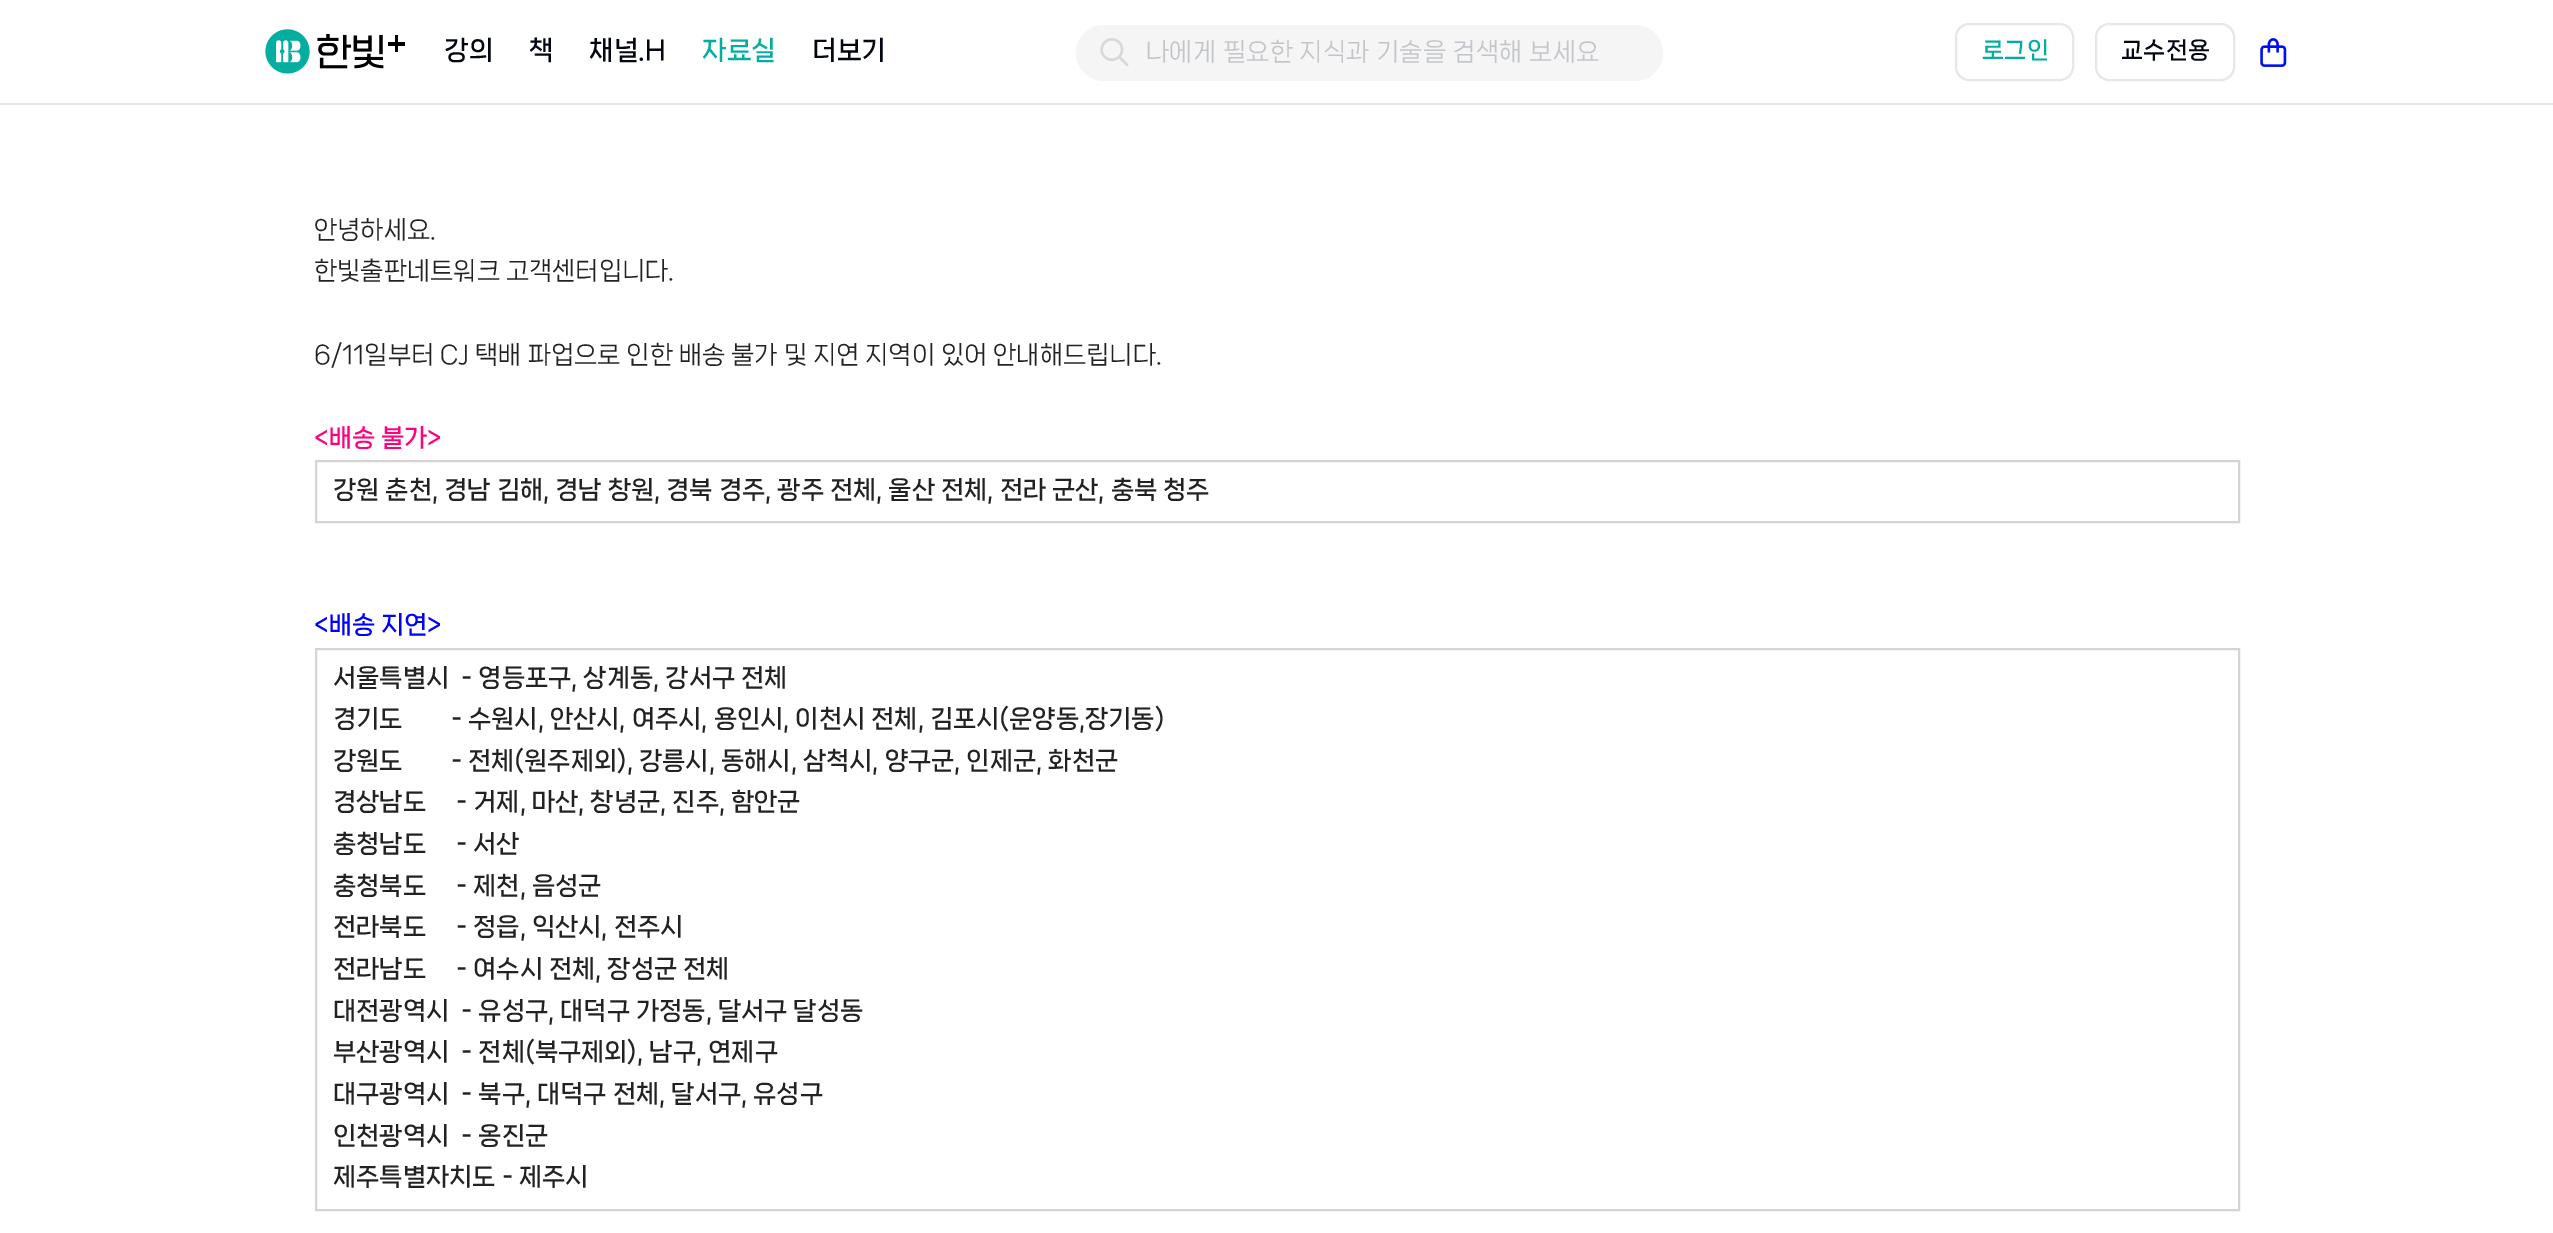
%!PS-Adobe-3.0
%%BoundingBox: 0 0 2553 1233
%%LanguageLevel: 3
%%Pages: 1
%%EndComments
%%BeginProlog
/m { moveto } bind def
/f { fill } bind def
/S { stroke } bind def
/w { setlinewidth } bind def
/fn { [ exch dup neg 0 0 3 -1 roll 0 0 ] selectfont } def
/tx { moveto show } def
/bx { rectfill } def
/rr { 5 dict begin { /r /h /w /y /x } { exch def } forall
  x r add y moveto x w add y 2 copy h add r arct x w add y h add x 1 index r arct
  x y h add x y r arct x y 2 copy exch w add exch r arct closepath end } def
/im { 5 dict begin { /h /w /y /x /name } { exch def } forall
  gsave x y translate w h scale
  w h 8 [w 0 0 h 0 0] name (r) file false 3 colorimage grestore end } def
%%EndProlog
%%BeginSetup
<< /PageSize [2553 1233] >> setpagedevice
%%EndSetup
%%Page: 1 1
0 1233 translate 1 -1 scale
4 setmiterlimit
1 setgray
0 0 2553 1233 bx
0.898 0.906 0.914 setrgbcolor
0 103 2553 2 bx
(image0.raw) 265 29 140 45 im
/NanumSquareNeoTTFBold-Bold 26 fn
0.012 0.027 0.071 setrgbcolor
(강의) 444 58 tx
(책) 529 58 tx
(채널.H) 589 58 tx
0.012 0.682 0.627 setrgbcolor
(자료실) 702 58 tx
0.012 0.027 0.071 setrgbcolor
(더보기) 812 58 tx
0.961 setgray
1076 25 587 56 28 rr f
(image1.raw) 1100 38 29 28 im
/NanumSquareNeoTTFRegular-Regular 24.5 fn
0.761 0.773 0.792 setrgbcolor
1146 59 m 0.25 0 (나에게 필요한 지식과 기술을 검색해 보세요) ashow
0.898 0.906 0.914 setrgbcolor
2 w
1956 24 117 56 13 rr S
/NanumSquareNeoTTFBold-Bold 23 fn
0.012 0.682 0.627 setrgbcolor
1982 57 m 0.5 0 (로그인) ashow
0.898 0.906 0.914 setrgbcolor
2096 24 138 56 13 rr S
0.012 0.027 0.071 setrgbcolor
2121 57 m 0.5 0 (교수전용) ashow
(image2.raw) 2260 38 27 29 im
/NanumSquareNeoTTFRegular-Regular 24.5 fn
0.133 setgray
(안녕하세요.) 314 237 tx
(한빛출판네트워크 고객센터입니다.) 314 278 tx
(6/11일부터 CJ 택배 파업으로 인한 배송 불가 및 지연 지역이 있어 안내해드립니다.) 314 362 tx
/NanumSquareNeoTTFBold-Bold 24.5 fn
1 0 0.498 setrgbcolor
(<배송 불가>) 314 445 tx
0.831 setgray
316 461 1923 61 rectstroke
0.133 setgray
(강원 춘천, 경남 김해, 경남 창원, 경북 경주, 광주 전체, 울산 전체, 전라 군산, 충북 청주) 333 497 tx
0 0 1 setrgbcolor
(<배송 지연>) 314 632 tx
0.831 setgray
316 649 1923 561 rectstroke
0.133 setgray
(서울특별시  - 영등포구, 상계동, 강서구 전체) 333 685 tx
(경기도        - 수원시, 안산시, 여주시, 용인시, 이천시 전체, 김포시\(운양동,장기동\)) 333 726 tx
(강원도        - 전체\(원주제외\), 강릉시, 동해시, 삼척시, 양구군, 인제군, 화천군) 333 768 tx
(경상남도     - 거제, 마산, 창녕군, 진주, 함안군) 333 809 tx
(충청남도     - 서산) 333 851 tx
(충청북도     - 제천, 음성군) 333 893 tx
(전라북도     - 정읍, 익산시, 전주시) 333 934 tx
(전라남도     - 여수시 전체, 장성군 전체) 333 976 tx
(대전광역시  - 유성구, 대덕구 가정동, 달서구 달성동) 333 1018 tx
(부산광역시  - 전체\(북구제외\), 남구, 연제구) 333 1059 tx
(대구광역시  - 북구, 대덕구 전체, 달서구, 유성구) 333 1101 tx
(인천광역시  - 옹진군) 333 1143 tx
(제주특별자치도 - 제주시) 333 1184 tx
showpage
%%EOF
